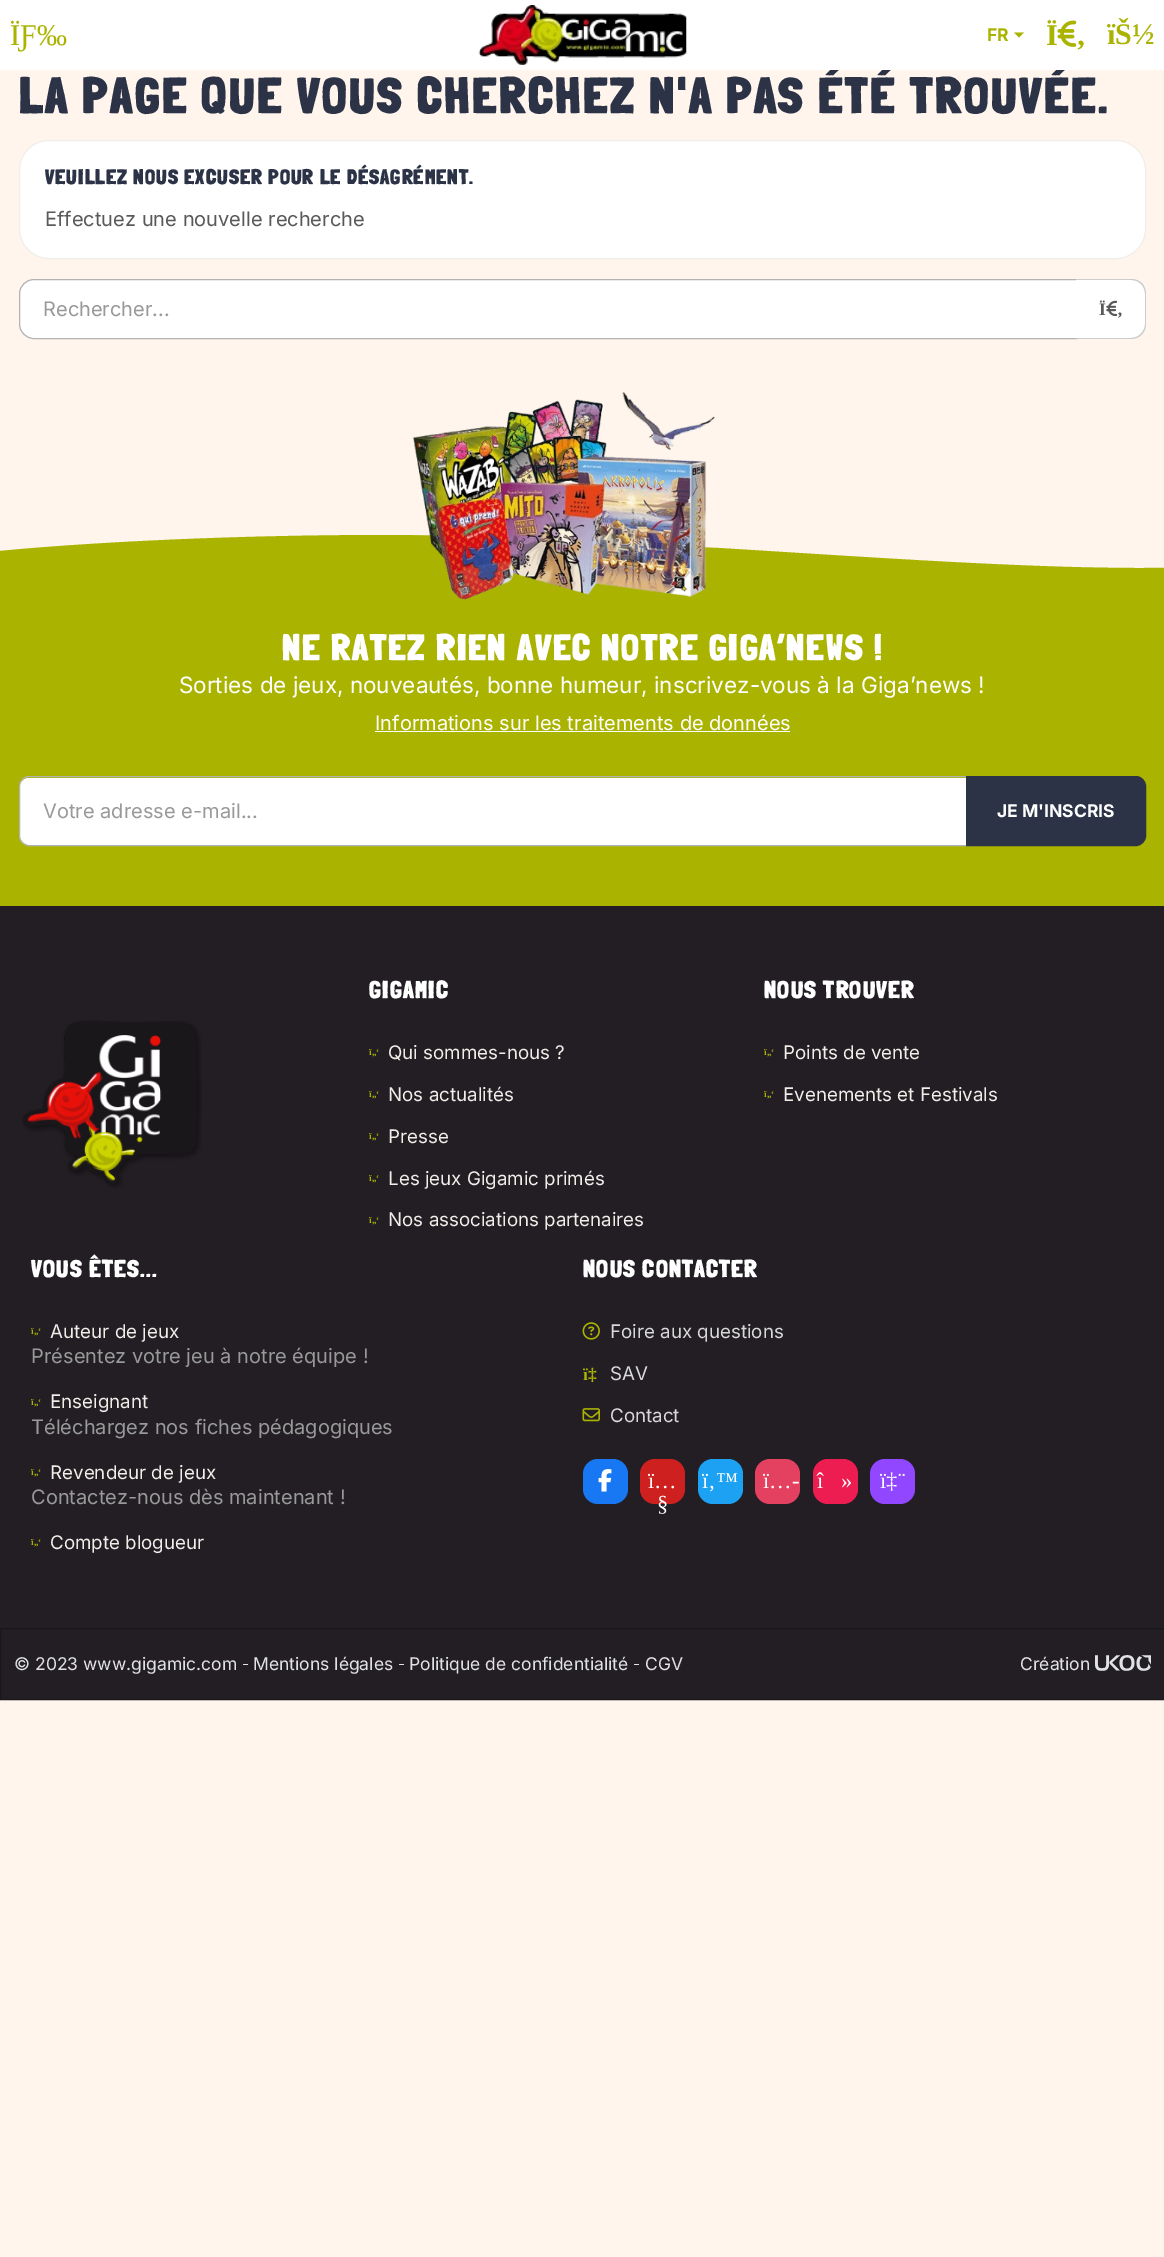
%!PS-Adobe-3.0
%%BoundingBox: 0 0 1164 2257
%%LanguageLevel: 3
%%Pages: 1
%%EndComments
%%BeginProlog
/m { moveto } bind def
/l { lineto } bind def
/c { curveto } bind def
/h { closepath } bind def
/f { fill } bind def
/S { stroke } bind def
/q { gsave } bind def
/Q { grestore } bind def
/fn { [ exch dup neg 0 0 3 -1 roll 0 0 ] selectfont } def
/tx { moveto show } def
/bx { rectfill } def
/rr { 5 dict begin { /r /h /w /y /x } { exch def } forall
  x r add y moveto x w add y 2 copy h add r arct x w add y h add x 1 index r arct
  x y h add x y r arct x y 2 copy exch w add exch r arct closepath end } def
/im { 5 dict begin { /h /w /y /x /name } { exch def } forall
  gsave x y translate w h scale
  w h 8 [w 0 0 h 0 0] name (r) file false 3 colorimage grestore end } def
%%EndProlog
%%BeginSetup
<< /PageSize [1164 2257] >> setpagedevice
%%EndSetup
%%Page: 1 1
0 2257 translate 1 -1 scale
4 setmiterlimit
1 0.961 0.925 setrgbcolor
0 0 1164 2257 bx
/LondrinaSolid-Black 50.75 fn
0.173 0.2 0.278 setrgbcolor
19 113 m 2.55 0 (LA PAGE QUE VOUS CHERCHEZ N'A PAS ÉTÉ TROUVÉE.) ashow
1 setgray
0 0 1164 70 bx
/LiberationSerif-Regular 30 fn
0.667 0.702 0 setrgbcolor
(ÏƑ‰) 10 45 tx
(image0.raw) 478 5 209 60 im
/Inter-Bold 17.5 fn
(FR) 987 41 tx
1014 32.5 m 1024 32.5 l 1019 37.5 l h f
/LiberationSerif-Bold 30 fn
(Ï) 1046 45 tx
(image1.raw) 1057 20 20 27 im
(‚) 1076 45 tx
(ïŠ½) 1107 44 tx
1 setgray
19.5 140.5 1126 118 29.5 rr q f Q
0.941 0.933 0.914 setrgbcolor
S
/LondrinaSolid-Black 21 fn
0.173 0.2 0.278 setrgbcolor
45 184 m 1.05 0 (VEUILLEZ NOUS EXCUSER POUR LE DÉSAGRÉMENT.) ashow
/Inter-Regular 20 fn
0.349 setgray
(Effectuez une nouvelle recherche) 45 226 tx
1 setgray
34 280 m 1076 280 l 1076 338 l 34 338 l 26.5 338 20 331.5 20 324 c 20 294 l 20 286.5 26.5 280 34 280 c h f
0.702 setgray
34 279.5 m 1077.5 279.5 l 1077.5 338.5 l 34 338.5 l 26 338.5 19.5 332 19.5 324 c 19.5 294 l 19.5 286 26 279.5 34 279.5 c h S
0.6 setgray
(Rechercher...) 43 316 tx
1 setgray
1076 279 m 1131 279 l 1139.5 279 1146 285.5 1146 294 c 1146 324 l 1146 332.5 1139.5 339 1131 339 c 1076 339 l h f
0.8 setgray
1076 279 m 1131 279 l 1140 279 1146 285 1146 294 c 1146 324 l 1146 332 1140 339 1131 339 c 1076 339 l h 1076 280 m 1131 280 l 1139 280 1145 286 1145 294 c 1145 324 l 1145 331 1139 338 1131 338 c 1076 338 l h eofill
/LiberationSerif-Bold 17.5 fn
0.349 setgray
(Ï) 1099 315 tx
(image2.raw) 1106 300 12 17 im
(‚) 1117 315 tx
0.667 0.702 0 setrgbcolor
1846 535 m 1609 535 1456 551 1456 551 c 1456 551 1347 568 1139 568 c 931 568 626 535 390 535 c 153 535 0 551 0 551 c 0 571 l 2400 571 l 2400 562 l 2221 552 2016 535 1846 535 c h f
0 571 1164 335 bx
(image3.raw) 413 392 302 208 im
/LondrinaSolid-Black 36.75 fn
1 setgray
282 660 m 1.85 0 (NE RATEZ RIEN AVEC NOTRE GIGA’NEWS !) ashow
/Inter-Regular 22.5 fn
(Sorties de jeux, nouveautés, bonne humeur, inscrivez-vous à la Giga’news !) 179 693 tx
/Inter-Regular 20 fn
(Informations sur les traitements de données) 375 730 tx
375 731 415 1 bx
29 778 m 966 778 l 966 845 l 29 845 l 24 845 20 841 20 836 c 20 787 l 20 782 24 778 29 778 c h f
0.702 setgray
29 776.5 m 967.5 776.5 l 967.5 845.5 l 29 845.5 l 24 845.5 19.5 841 19.5 836 c 19.5 786 l 19.5 781 24 776.5 29 776.5 c h S
0.6 setgray
(Votre adresse e-mail...) 43 818 tx
0.173 0.2 0.278 setrgbcolor
966.5 776.5 m 1136 776.5 l 1141 776.5 1145.5 781 1145.5 786 c 1145.5 836 l 1145.5 841 1141 845.5 1136 845.5 c 966.5 845.5 l h q f Q
S
/Inter-Bold 17.5 fn
1 setgray
(JE M'INSCRIS) 997 817 tx
0.133 0.118 0.141 setrgbcolor
0 906 1164 722 bx
(image4.raw) 22 1020 180 168 im
/LondrinaSolid-Black 24.5 fn
1 setgray
369 998 m 1.25 0 (GIGAMIC) ashow
/LiberationSerif-Bold 9 fn
0.667 0.702 0 setrgbcolor
(ï„‘) 369 1055 tx
/Inter-Regular 18.75 fn
0.941 0.933 0.914 setrgbcolor
(Qui sommes-nous ?) 388 1059 tx
/LiberationSerif-Bold 9 fn
0.667 0.702 0 setrgbcolor
(ï„‘) 369 1097 tx
/Inter-Regular 18.75 fn
0.941 0.933 0.914 setrgbcolor
(Nos actualités) 388 1101 tx
/LiberationSerif-Bold 9 fn
0.667 0.702 0 setrgbcolor
(ï„‘) 369 1139 tx
/Inter-Regular 18.75 fn
0.941 0.933 0.914 setrgbcolor
(Presse) 388 1143 tx
/LiberationSerif-Bold 9 fn
0.667 0.702 0 setrgbcolor
(ï„‘) 369 1181 tx
/Inter-Regular 18.75 fn
0.941 0.933 0.914 setrgbcolor
(Les jeux Gigamic primés) 388 1185 tx
/LiberationSerif-Bold 9 fn
0.667 0.702 0 setrgbcolor
(ï„‘) 369 1223 tx
/Inter-Regular 18.75 fn
0.941 0.933 0.914 setrgbcolor
(Nos associations partenaires) 388 1226 tx
/LondrinaSolid-Black 24.5 fn
1 setgray
764 998 m 1.25 0 (NOUS TROUVER) ashow
/LiberationSerif-Bold 9 fn
0.667 0.702 0 setrgbcolor
(ï„‘) 764 1055 tx
/Inter-Regular 18.75 fn
0.941 0.933 0.914 setrgbcolor
(Points de vente) 783 1059 tx
/LiberationSerif-Bold 9 fn
0.667 0.702 0 setrgbcolor
(ï„‘) 764 1097 tx
/Inter-Regular 18.75 fn
0.941 0.933 0.914 setrgbcolor
(Evenements et Festivals) 783 1101 tx
/LondrinaSolid-Black 24.5 fn
1 setgray
31 1277 m 1.25 0 (VOUS ÊTES...) ashow
/LiberationSerif-Bold 9 fn
0.667 0.702 0 setrgbcolor
(ï„‘) 31 1334 tx
/Inter-Regular 18.75 fn
0.941 0.933 0.914 setrgbcolor
(Auteur de jeux) 50 1338 tx
/Inter-Regular 20 fn
0.6 setgray
(Présentez votre jeu à notre équipe !) 31 1363 tx
/LiberationSerif-Bold 9 fn
0.667 0.702 0 setrgbcolor
(ï„‘) 31 1405 tx
/Inter-Regular 18.75 fn
0.941 0.933 0.914 setrgbcolor
(Enseignant) 50 1408 tx
/Inter-Regular 20 fn
0.6 setgray
(Téléchargez nos fiches pédagogiques) 31 1434 tx
/LiberationSerif-Bold 9 fn
0.667 0.702 0 setrgbcolor
(ï„‘) 31 1475 tx
/Inter-Regular 18.75 fn
0.941 0.933 0.914 setrgbcolor
(Revendeur de jeux) 50 1479 tx
/Inter-Regular 20 fn
0.6 setgray
(Contactez-nous dès maintenant !) 31 1504 tx
/LiberationSerif-Bold 9 fn
0.667 0.702 0 setrgbcolor
(ï„‘) 31 1545 tx
/Inter-Regular 18.75 fn
0.941 0.933 0.914 setrgbcolor
(Compte blogueur) 50 1549 tx
/LondrinaSolid-Black 24.5 fn
1 setgray
583 1277 m 1.25 0 (NOUS CONTACTER) ashow
(image5.raw) 582 1322 18 18 im
/Inter-Regular 18.75 fn
0.851 setgray
(Foire aux questions) 610 1338 tx
/LiberationSerif-Bold 17.5 fn
0.667 0.702 0 setrgbcolor
(ï‡) 583 1380 tx
/Inter-Regular 18.75 fn
0.851 setgray
(SAV) 610 1380 tx
(image6.raw) 582 1408 18 14 im
(Contact) 610 1422 tx
0.094 0.467 0.949 setrgbcolor
583 1459 45 45 15 rr f
(image7.raw) 598 1469 14 23 im
0.804 0.125 0.122 setrgbcolor
640 1459 45 45 15 rr f
/LiberationSerif-Regular 22.5 fn
1 setgray
(ï…) 648 1488 tx
(§) 657 1511 tx
0.114 0.631 0.949 setrgbcolor
698 1459 45 45 15 rr f
1 setgray
(ï‚™) 702 1488 tx
0.894 0.251 0.373 setrgbcolor
755 1459 45 45 15 rr f
1 setgray
(ï…-) 763 1488 tx
0.933 0.114 0.318 setrgbcolor
813 1459 45 45 15 rr f
1 setgray
(î) 817 1488 tx
(») 841 1488 tx
0.569 0.278 1 setrgbcolor
870 1459 45 45 15 rr f
1 setgray
(ï‡¨) 880 1488 tx
0.133 0.118 0.141 setrgbcolor
0.5 1628.5 m 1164.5 1628.5 l 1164.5 1699.5 l 0.5 1699.5 l h q f Q
0.102 0.09 0.106 setrgbcolor
S
/Inter-Regular 17.5 fn
0.882 0.886 0.89 setrgbcolor
(© 2023 www.gigamic.com) 14 1670 tx
243 1664 5 1 bx
(Mentions légales) 253 1670 tx
399 1664 5 1 bx
(Politique de confidentialité) 409 1670 tx
634 1664 5 1 bx
(CGV) 645 1670 tx
(Création) 1020 1670 tx
(image8.raw) 1095 1655 56 16 im
showpage
%%EOF
